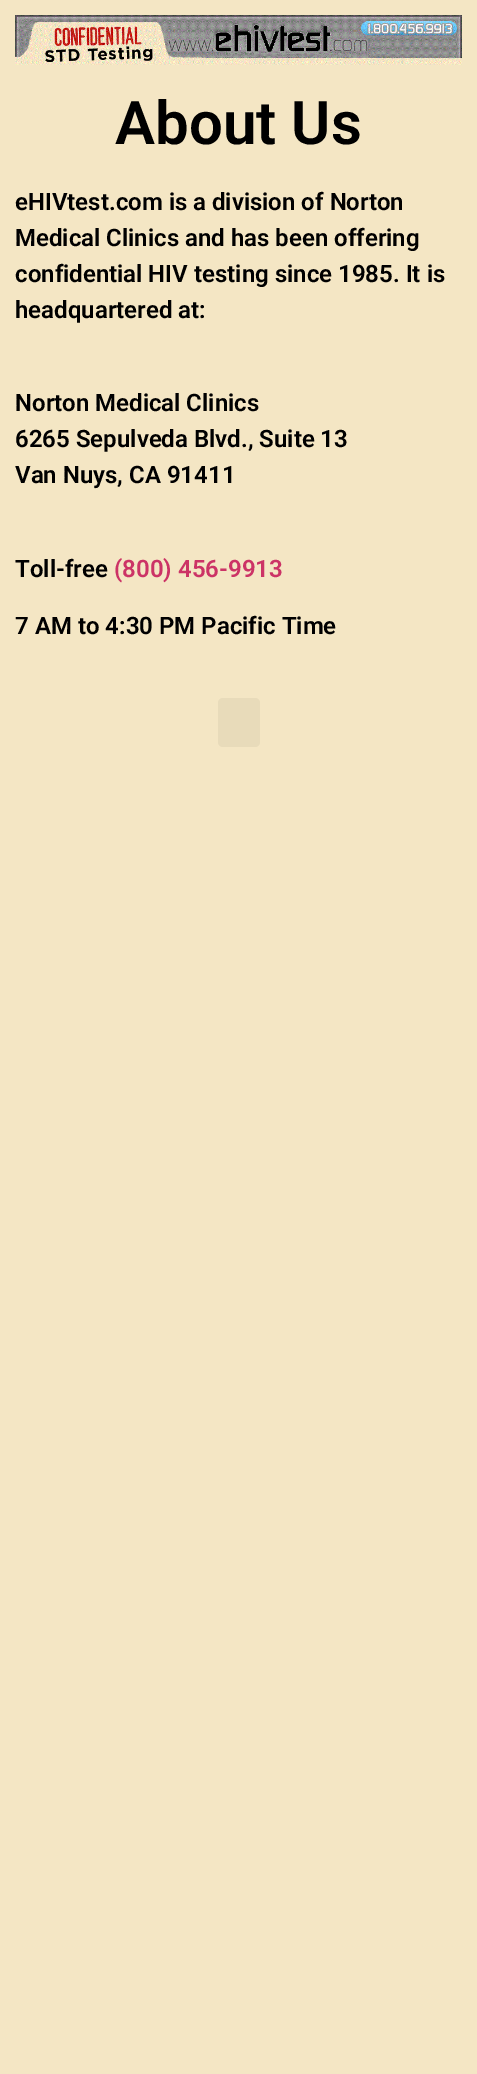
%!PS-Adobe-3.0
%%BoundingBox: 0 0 477 2074
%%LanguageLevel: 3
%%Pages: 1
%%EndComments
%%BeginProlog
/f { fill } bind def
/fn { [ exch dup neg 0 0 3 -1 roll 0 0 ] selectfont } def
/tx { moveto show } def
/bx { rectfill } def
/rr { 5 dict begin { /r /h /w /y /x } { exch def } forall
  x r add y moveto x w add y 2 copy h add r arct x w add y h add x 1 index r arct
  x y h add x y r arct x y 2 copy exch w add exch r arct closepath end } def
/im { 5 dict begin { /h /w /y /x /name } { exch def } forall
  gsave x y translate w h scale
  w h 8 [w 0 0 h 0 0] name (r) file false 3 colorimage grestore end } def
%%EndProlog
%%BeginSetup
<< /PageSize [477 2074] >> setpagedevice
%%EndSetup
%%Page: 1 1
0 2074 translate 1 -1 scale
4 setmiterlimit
0.957 0.902 0.769 setrgbcolor
0 0 477 2074 bx
(image0.raw) 15 15 447 50 im
/Roboto-SemiBold 60 fn
0 setgray
(About Us) 115 144 tx
/Roboto-SemiBold 24 fn
(eHIVtest.com is a division of Norton) 15 210 tx
(Medical Clinics and has been offering) 15 246 tx
(confidential HIV testing since 1985. It is) 15 282 tx
(headquartered at:) 15 318 tx
(Norton Medical Clinics) 15 411 tx
(6265 Sepulveda Blvd., Suite 13) 15 447 tx
(Van Nuys, CA 91411) 15 483 tx
(Toll-free) 15 577 tx
0.8 0.2 0.4 setrgbcolor
(\(800\) 456-9913) 114 577 tx
0 setgray
(7 AM to 4:30 PM Pacific Time) 15 634 tx
0.91 0.859 0.729 setrgbcolor
218 698 42 49 5 rr f
showpage
%%EOF
